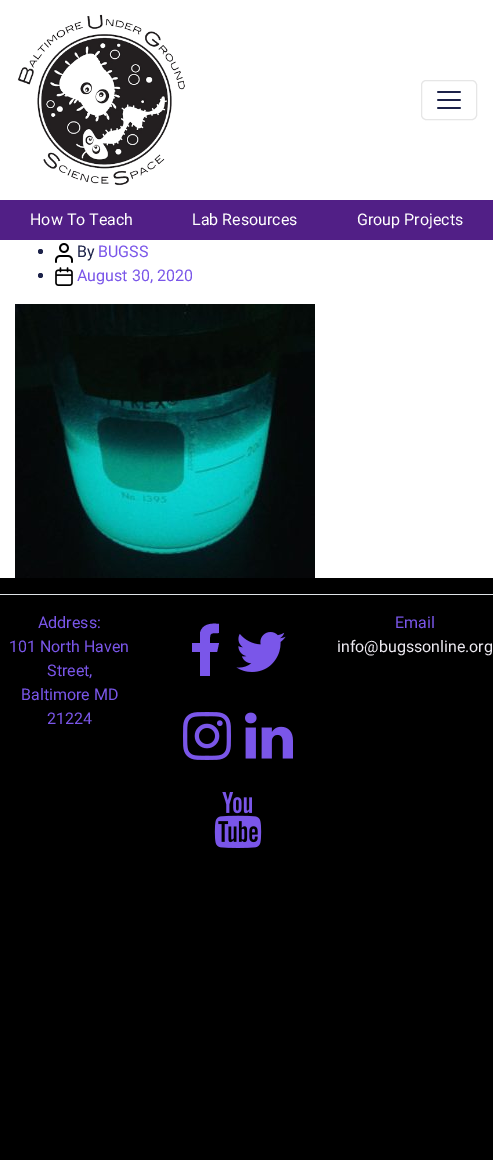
%!PS-Adobe-3.0
%%BoundingBox: 0 0 493 1160
%%LanguageLevel: 3
%%Pages: 1
%%EndComments
%%BeginProlog
/m { moveto } bind def
/l { lineto } bind def
/c { curveto } bind def
/h { closepath } bind def
/f { fill } bind def
/S { stroke } bind def
/fn { [ exch dup neg 0 0 3 -1 roll 0 0 ] selectfont } def
/tx { moveto show } def
/bx { rectfill } def
/ci { newpath 0 360 arc closepath } def
/rr { 5 dict begin { /r /h /w /y /x } { exch def } forall
  x r add y moveto x w add y 2 copy h add r arct x w add y h add x 1 index r arct
  x y h add x y r arct x y 2 copy exch w add exch r arct closepath end } def
/im { 5 dict begin { /h /w /y /x /name } { exch def } forall
  gsave x y translate w h scale
  w h 8 [w 0 0 h 0 0] name (r) file false 3 colorimage grestore end } def
%%EndProlog
%%BeginSetup
<< /PageSize [493 1160] >> setpagedevice
%%EndSetup
%%Page: 1 1
0 1160 translate 1 -1 scale
4 setmiterlimit
0 setgray
0 0 493 1160 bx
1 setgray
0 0 493 200 bx
(image0.raw) 17 14 168 172 im
0.902 setgray
421.5 80.5 55 39 4.5 rr S
(image1.raw) 437 91 24 18 im
0.318 0.122 0.525 setrgbcolor
0 200 493 40 bx
/Roboto-Regular 16 fn
1 setgray
(How To Teach) 30 225 tx
(Lab Resources) 192 225 tx
(Group Projects) 357 225 tx
0 240 493 338 bx
0.11 0.133 0.286 setrgbcolor
40.5 251.5 2.5 ci f
(image2.raw) 55 243 18 20 im
(By) 77 257 tx
0.478 0.337 0.914 setrgbcolor
(BUGSS) 98 257 tx
0.11 0.133 0.286 setrgbcolor
40.5 275.5 2.5 ci f
(image3.raw) 55 267 18 19 im
0.478 0.337 0.914 setrgbcolor
(August 30, 2020) 77 281 tx
(image4.raw) 15 304 300 274 im
0.871 0.886 0.902 setrgbcolor
0 594 493 1 bx
0.478 0.337 0.914 setrgbcolor
(Address:) 38 628 tx
(101 North Haven) 9 652 tx
(Street,) 47 676 tx
(Baltimore MD) 21 700 tx
(21224) 47 724 tx
219 624 m 219 633 l 209 633 210 633 210 643 c 219 643 l 217 652 l 210 652 l 210 676 l 200 676 l 200 652 l 192 652 l 192 643 l 200 643 l 200 633 l 202 624 211 623 219 624 c h f
(image5.raw) 236 632 50 40 im
(image6.raw) 183 712 48 48 im
(image7.raw) 245 712 48 47 im
(image8.raw) 214 792 48 56 im
(Email) 395 628 tx
0.925 0.914 0.941 setrgbcolor
(info@bugssonline.org) 337 652 tx
showpage
%%EOF
